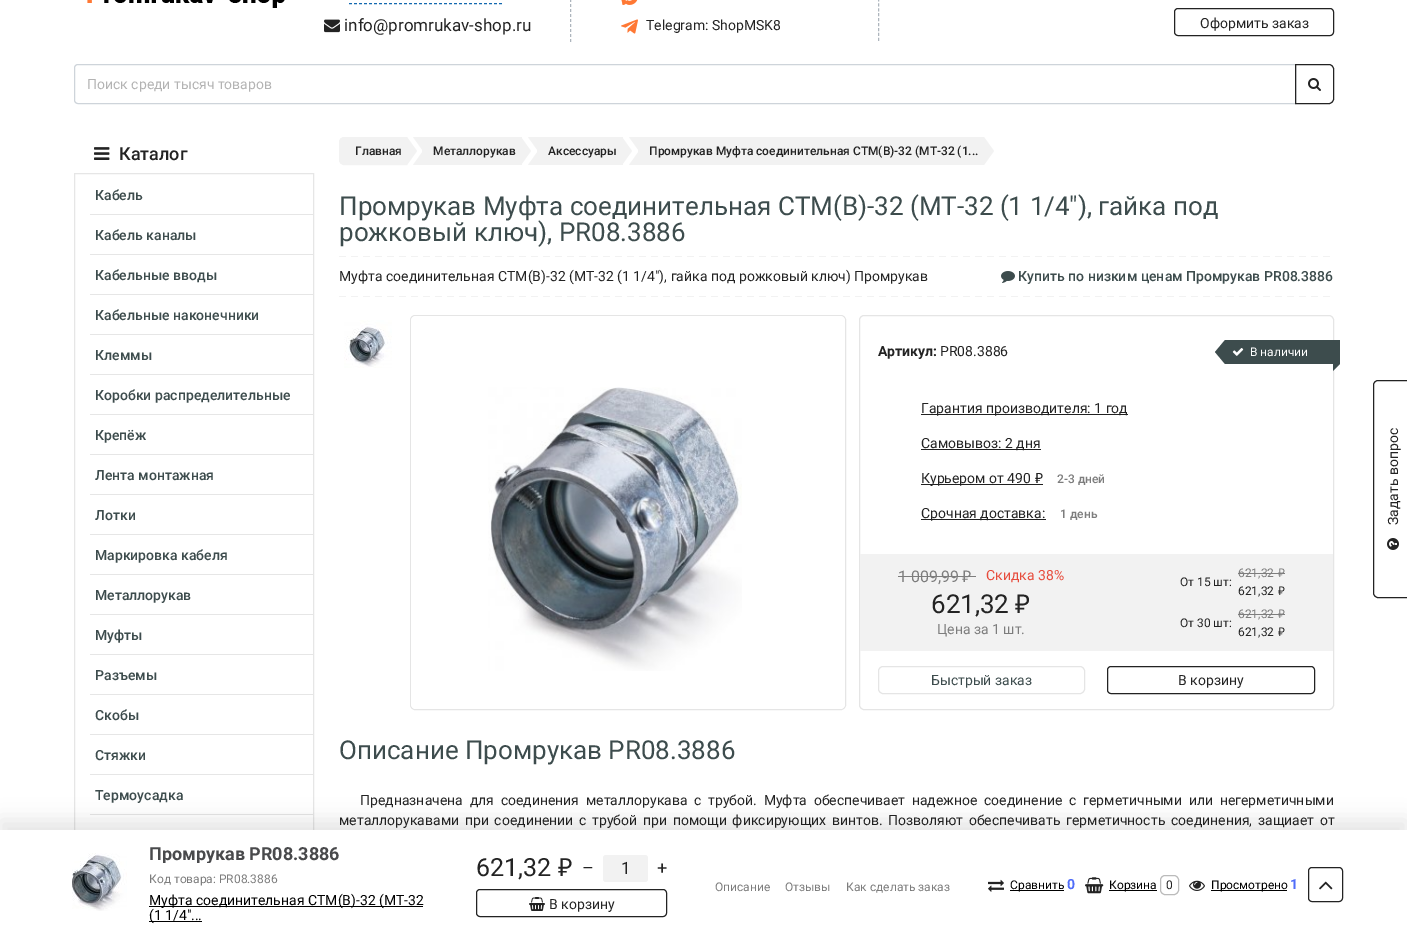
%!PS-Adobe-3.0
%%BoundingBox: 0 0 1407 938
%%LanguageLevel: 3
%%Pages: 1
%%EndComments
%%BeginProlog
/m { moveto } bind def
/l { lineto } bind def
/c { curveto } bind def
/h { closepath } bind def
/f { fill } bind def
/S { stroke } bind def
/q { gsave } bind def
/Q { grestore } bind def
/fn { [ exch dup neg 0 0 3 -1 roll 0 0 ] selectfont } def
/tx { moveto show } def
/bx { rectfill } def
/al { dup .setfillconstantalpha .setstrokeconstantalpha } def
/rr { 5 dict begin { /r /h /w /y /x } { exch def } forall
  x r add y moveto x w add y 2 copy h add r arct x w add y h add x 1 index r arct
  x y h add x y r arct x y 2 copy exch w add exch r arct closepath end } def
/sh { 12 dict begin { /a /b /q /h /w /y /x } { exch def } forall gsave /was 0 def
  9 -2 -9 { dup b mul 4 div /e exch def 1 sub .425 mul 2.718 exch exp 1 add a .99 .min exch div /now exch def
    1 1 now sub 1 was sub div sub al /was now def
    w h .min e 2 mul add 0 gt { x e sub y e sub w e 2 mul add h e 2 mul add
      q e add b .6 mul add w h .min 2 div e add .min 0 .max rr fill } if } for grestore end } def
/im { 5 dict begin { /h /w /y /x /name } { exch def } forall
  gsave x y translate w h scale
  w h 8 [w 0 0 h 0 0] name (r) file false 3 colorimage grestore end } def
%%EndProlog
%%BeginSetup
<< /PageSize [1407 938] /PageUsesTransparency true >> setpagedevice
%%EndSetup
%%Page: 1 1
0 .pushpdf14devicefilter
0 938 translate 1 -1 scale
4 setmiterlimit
1 setgray
0 0 1407 938 bx
(image0.raw) 87 0 198 8 im
0.678 0.71 0.741 setrgbcolor
[3 2] 0 setdash
570.5 -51 m 570.5 42 l S
0.078 0.412 0.686 setrgbcolor
349 3.5 m 502 3.5 l S
(image1.raw) 324 19 16 14 im
/Roboto-Regular 17 fn
0.137 setgray
(info@promrukav-shop.ru) 344 31 tx
0.678 0.71 0.741 setrgbcolor
[3 1.94] 0 setdash
878.5 -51 m 878.5 41 l S
(image2.raw) 621 0 17 5 im
(image3.raw) 621 19 17 15 im
/Roboto-Regular 14 fn
0.137 setgray
(Telegram: ShopMSK8) 646 30 tx
[] 0 setdash
1174.5 8.5 159 27 3.5 rr S
(Оформить заказ) 1200 28 tx
0.808 0.831 0.855 setrgbcolor
78 64.5 m 1295.5 64.5 l 1295.5 103.5 l 78 103.5 l 76 103.5 74.5 102 74.5 100 c 74.5 68 l 74.5 66 76 64.5 78 64.5 c h S
0.702 setgray
(Поиск среди тысяч товаров) 87 89 tx
0.137 setgray
1295.5 64.5 m 1329 64.5 l 1331.5 64.5 1333.5 66.5 1333.5 69 c 1333.5 99 l 1333.5 101.5 1331.5 103.5 1329 103.5 c 1295.5 103.5 l h S
(image4.raw) 1308 78 13 13 im
(image5.raw) 94 147 16 13 im
/Roboto-Medium 18 fn
(Каталог) 119 160 tx
0.902 setgray
74.5 173.5 239 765 rectstroke
90 214 223 1 bx
/Roboto-Medium 14 fn
0.239 0.298 0.302 setrgbcolor
(Кабель) 95 200 tx
0.902 setgray
90 254 223 1 bx
0.239 0.298 0.302 setrgbcolor
(Кабель каналы) 95 240 tx
0.902 setgray
90 294 223 1 bx
0.239 0.298 0.302 setrgbcolor
(Кабельные вводы) 95 280 tx
0.902 setgray
90 334 223 1 bx
0.239 0.298 0.302 setrgbcolor
(Кабельные наконечники) 95 320 tx
0.902 setgray
90 374 223 1 bx
0.239 0.298 0.302 setrgbcolor
(Клеммы) 95 360 tx
0.902 setgray
90 414 223 1 bx
0.239 0.298 0.302 setrgbcolor
(Коробки распределительные) 95 400 tx
0.902 setgray
90 454 223 1 bx
0.239 0.298 0.302 setrgbcolor
(Крепёж) 95 440 tx
0.902 setgray
90 494 223 1 bx
0.239 0.298 0.302 setrgbcolor
(Лента монтажная) 95 480 tx
0.902 setgray
90 534 223 1 bx
0.239 0.298 0.302 setrgbcolor
(Лотки) 95 520 tx
0.902 setgray
90 574 223 1 bx
0.239 0.298 0.302 setrgbcolor
(Маркировка кабеля) 95 560 tx
0.902 setgray
90 614 223 1 bx
0.239 0.298 0.302 setrgbcolor
(Металлорукав) 95 600 tx
0.902 setgray
90 654 223 1 bx
0.239 0.298 0.302 setrgbcolor
(Муфты) 95 640 tx
0.902 setgray
90 694 223 1 bx
0.239 0.298 0.302 setrgbcolor
(Разъемы) 95 680 tx
0.902 setgray
90 734 223 1 bx
0.239 0.298 0.302 setrgbcolor
(Скобы) 95 720 tx
0.902 setgray
90 774 223 1 bx
0.239 0.298 0.302 setrgbcolor
(Стяжки) 95 760 tx
0.902 setgray
90 814 223 1 bx
0.239 0.298 0.302 setrgbcolor
(Термоусадка) 95 800 tx
0.949 setgray
344 137.5 m 406.5 137.5 l 406.5 164.5 l 344 164.5 l 341.5 164.5 339.5 162.5 339.5 160 c 339.5 142 l 339.5 139.5 341.5 137.5 344 137.5 c h q f Q
S
/Roboto-Medium 12 fn
0.137 setgray
(Главная) 355 155 tx
0.949 setgray
407 165 m 407 137 l 417 151 l h f
422 137 100 28 bx
413 137 m 431 137 l 431 151 l 423 151 l h 431 165 m 413 165 l 423 151 l 431 151 l h f
0.137 setgray
(Металлорукав) 433 155 tx
0.949 setgray
521 165 m 521 137 l 531 151 l h f
537 137 86 28 bx
528 137 m 546 137 l 546 151 l 538 151 l h 546 165 m 528 165 l 538 151 l 546 151 l h f
0.137 setgray
(Аксессуары) 548 155 tx
0.949 setgray
622 165 m 622 137 l 632 151 l h f
638 137 346 28 bx
629 137 m 647 137 l 647 151 l 639 151 l h 647 165 m 629 165 l 639 151 l 647 151 l h f
0.137 setgray
(Промрукав Муфта соединительная СТМ\(В\)-32 \(МТ-32 \(1...) 649 155 tx
0.949 setgray
984 165 m 984 137 l 994 151 l h f
/Roboto-Regular 26 fn
0.239 0.298 0.302 setrgbcolor
(Промрукав Муфта соединительная СТМ\(В\)-32 \(МТ-32 \(1 1/4"\), гайка под) 339 215 tx
(рожковый ключ\), PR08.3886) 339 241 tx
(image6.raw) 339 256 991 1 im
/Roboto-Regular 14 fn
0.137 setgray
(Муфта соединительная СТМ\(В\)-32 \(МТ-32 \(1 1/4"\), гайка под рожковый ключ\) Промрукав) 339 281 tx
(image7.raw) 1001 271 14 12 im
/Roboto-Medium 14 fn
0.239 0.298 0.302 setrgbcolor
(Купить по низким ценам Промрукав PR08.3886) 1018 281 tx
(image6.raw) 339 296 991 1 im
(image8.raw) 344 320 48 48 im
0.898 setgray
410.5 315.5 435 394 4.5 rr S
1 setgray
411 316 434 393 5 rr f
(image9.raw) 488 387 254 284 im
0.898 setgray
859.5 315.5 474 394 4.5 rr S
/Roboto-Bold 14 fn
0.137 setgray
(Артикул:) 878 356 tx
/Roboto-Regular 14 fn
(PR08.3886) 940 356 tx
0.239 0.298 0.302 setrgbcolor
1225 340 115 24 bx
1225 340 m 1225 364 l 1215 352 l h f
(image10.raw) 1232 348 12 8 im
/Roboto-Regular 12 fn
1 setgray
(В наличии) 1250 356 tx
0.239 0.298 0.302 setrgbcolor
1333 364 m 1340 364 l 1333 371 l h f
0.129 setgray
921 414 207 1 bx
/Roboto-Regular 14 fn
0.137 setgray
(Гарантия производителя: 1 год) 921 413 tx
0.129 setgray
921 449 120 1 bx
0.137 setgray
(Самовывоз: 2 дня) 921 448 tx
0.129 setgray
921 484 122 1 bx
0.137 setgray
(Курьером от 490) 921 483 tx
/NotoSans-Regular 14 fn
(₽) 1035 483 tx
/Roboto-Medium 12 fn
0.49 setgray
(2-3 дней) 1057 483 tx
0.129 setgray
921 519 125 1 bx
/Roboto-Regular 14 fn
0.137 setgray
(Срочная доставка:) 921 518 tx
/Roboto-Medium 12 fn
0.49 setgray
(1 день) 1060 518 tx
0.949 setgray
860 554 473 97 bx
/Roboto-Regular 16 fn
0.49 setgray
(1 009,99) 898 582 tx
/NotoSans-Regular 16 fn
(₽) 962 582 tx
898 576 78 1 bx
/Roboto-Regular 14 fn
0.906 0.298 0.235 setrgbcolor
(Скидка 38%) 986 580 tx
/Roboto-Regular 26 fn
0.137 setgray
(621,32) 931 613 tx
/NotoSans-Regular 26 fn
(₽) 1015 613 tx
/Roboto-Regular 14 fn
0.49 setgray
(Цена за 1 шт.) 937 634 tx
/Roboto-Regular 12 fn
0.137 setgray
(От 15 шт:) 1180 586 tx
0.49 setgray
(621,32) 1238 577 tx
1238 573 47 1 bx
/NotoSans-Regular 12 fn
(₽) 1278 577 tx
/Roboto-Regular 12 fn
0.137 setgray
(621,32) 1238 595 tx
/NotoSans-Regular 12 fn
(₽) 1278 595 tx
/Roboto-Regular 12 fn
(От 30 шт:) 1180 627 tx
0.49 setgray
(621,32) 1238 618 tx
1238 614 47 1 bx
/NotoSans-Regular 12 fn
(₽) 1278 618 tx
/Roboto-Regular 12 fn
0.137 setgray
(621,32) 1238 636 tx
/NotoSans-Regular 12 fn
(₽) 1278 636 tx
0.898 setgray
878.5 666.5 206 27 4.5 rr S
/Roboto-Regular 14 fn
0.239 0.298 0.302 setrgbcolor
(Быстрый заказ) 931 685 tx
0.137 setgray
1107.5 666.5 207 27 3.5 rr S
(В корзину) 1178 685 tx
/Roboto-Regular 26 fn
0.239 0.298 0.302 setrgbcolor
(Описание Промрукав PR08.3886) 339 759 tx
/Roboto-Regular 14 fn
0.137 setgray
360 805 m 3.25 0 32 (Предназначена для соединения металлорукава с трубой. Муфта обеспечивает надежное соединение с герметичными или негерметичными) widthshow
339 825 m 2.25 0 32 (металлорукавами при соединении с трубой при помощи фиксирующих винтов. Позволяют обеспечивать герметичность соединения, защиает от) widthshow
1373.5 593 m 1373.5 385 l 1373.5 382.5 1375.5 380.5 1378 380.5 c 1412.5 380.5 l 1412.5 597.5 l 1378 597.5 l 1375.5 597.5 1373.5 595.5 1373.5 593 c h S
q 1398 525 translate -90 rotate 0 0 m (Задать вопрос) show Q
(image11.raw) 1387 538 12 12 im
0 setgray
0 820 1407 108 0 10 0.1 sh
1 setgray
0 830 1407 108 bx
(image12.raw) 72 853 55 58 im
q
149 845 190 18 rectclip
/Roboto-Bold 18 fn
0.286 0.29 0.298 setrgbcolor
(Промрукав PR08.3886) 149 860 tx
Q
/Roboto-Regular 12 fn
0.49 setgray
(Код товара: PR08.3886) 149 883 tx
0 setgray
149 906 274 1 bx
/Roboto-Regular 14 fn
(Муфта соединительная СТМ\(В\)-32 \(МТ-32) 149 905 tx
149 921 53 1 bx
(\(1 1/4"...) 149 920 tx
/Roboto-Regular 25 fn
0.137 setgray
(621,32) 476 876 tx
/NotoSans-Regular 25 fn
(₽) 558 876 tx
/Roboto-Regular 18 fn
(–) 582 874 tx
0.949 setgray
603 855 45 27 3 rr f
/Roboto-Regular 17 fn
0.137 setgray
(1) 621 874 tx
/Roboto-Regular 18 fn
(+) 657 874 tx
476.5 889.5 190 27 3.5 rr S
(image13.raw) 529 897 16 14 im
/Roboto-Regular 14 fn
(В корзину) 549 909 tx
/Roboto-Regular 12 fn
0.49 setgray
(Описание) 715 891 tx
(Отзывы) 785 891 tx
(Как сделать заказ) 846 891 tx
(image14.raw) 988 879 16 13 im
0 setgray
1010 890 54 1 bx
(Сравнить) 1010 889 tx
/Roboto-Bold 14 fn
0.314 0.427 0.976 setrgbcolor
(0) 1067 889 tx
(image15.raw) 1085 877 19 17 im
0 setgray
1109 890 48 1 bx
/Roboto-Regular 12 fn
(Корзина) 1109 889 tx
0.733 setgray
1160.5 875.5 18 19 4.5 rr S
0.137 setgray
(0) 1166 889 tx
(image16.raw) 1189 880 16 11 im
0 setgray
1211 890 76 1 bx
(Просмотрено) 1211 889 tx
/Roboto-Bold 14 fn
0.314 0.427 0.976 setrgbcolor
(1) 1290 889 tx
0.137 setgray
1308.5 867.5 34 34 3.5 rr S
(image17.raw) 1319 881 14 9 im
.poppdf14devicefilter showpage
%%EOF
